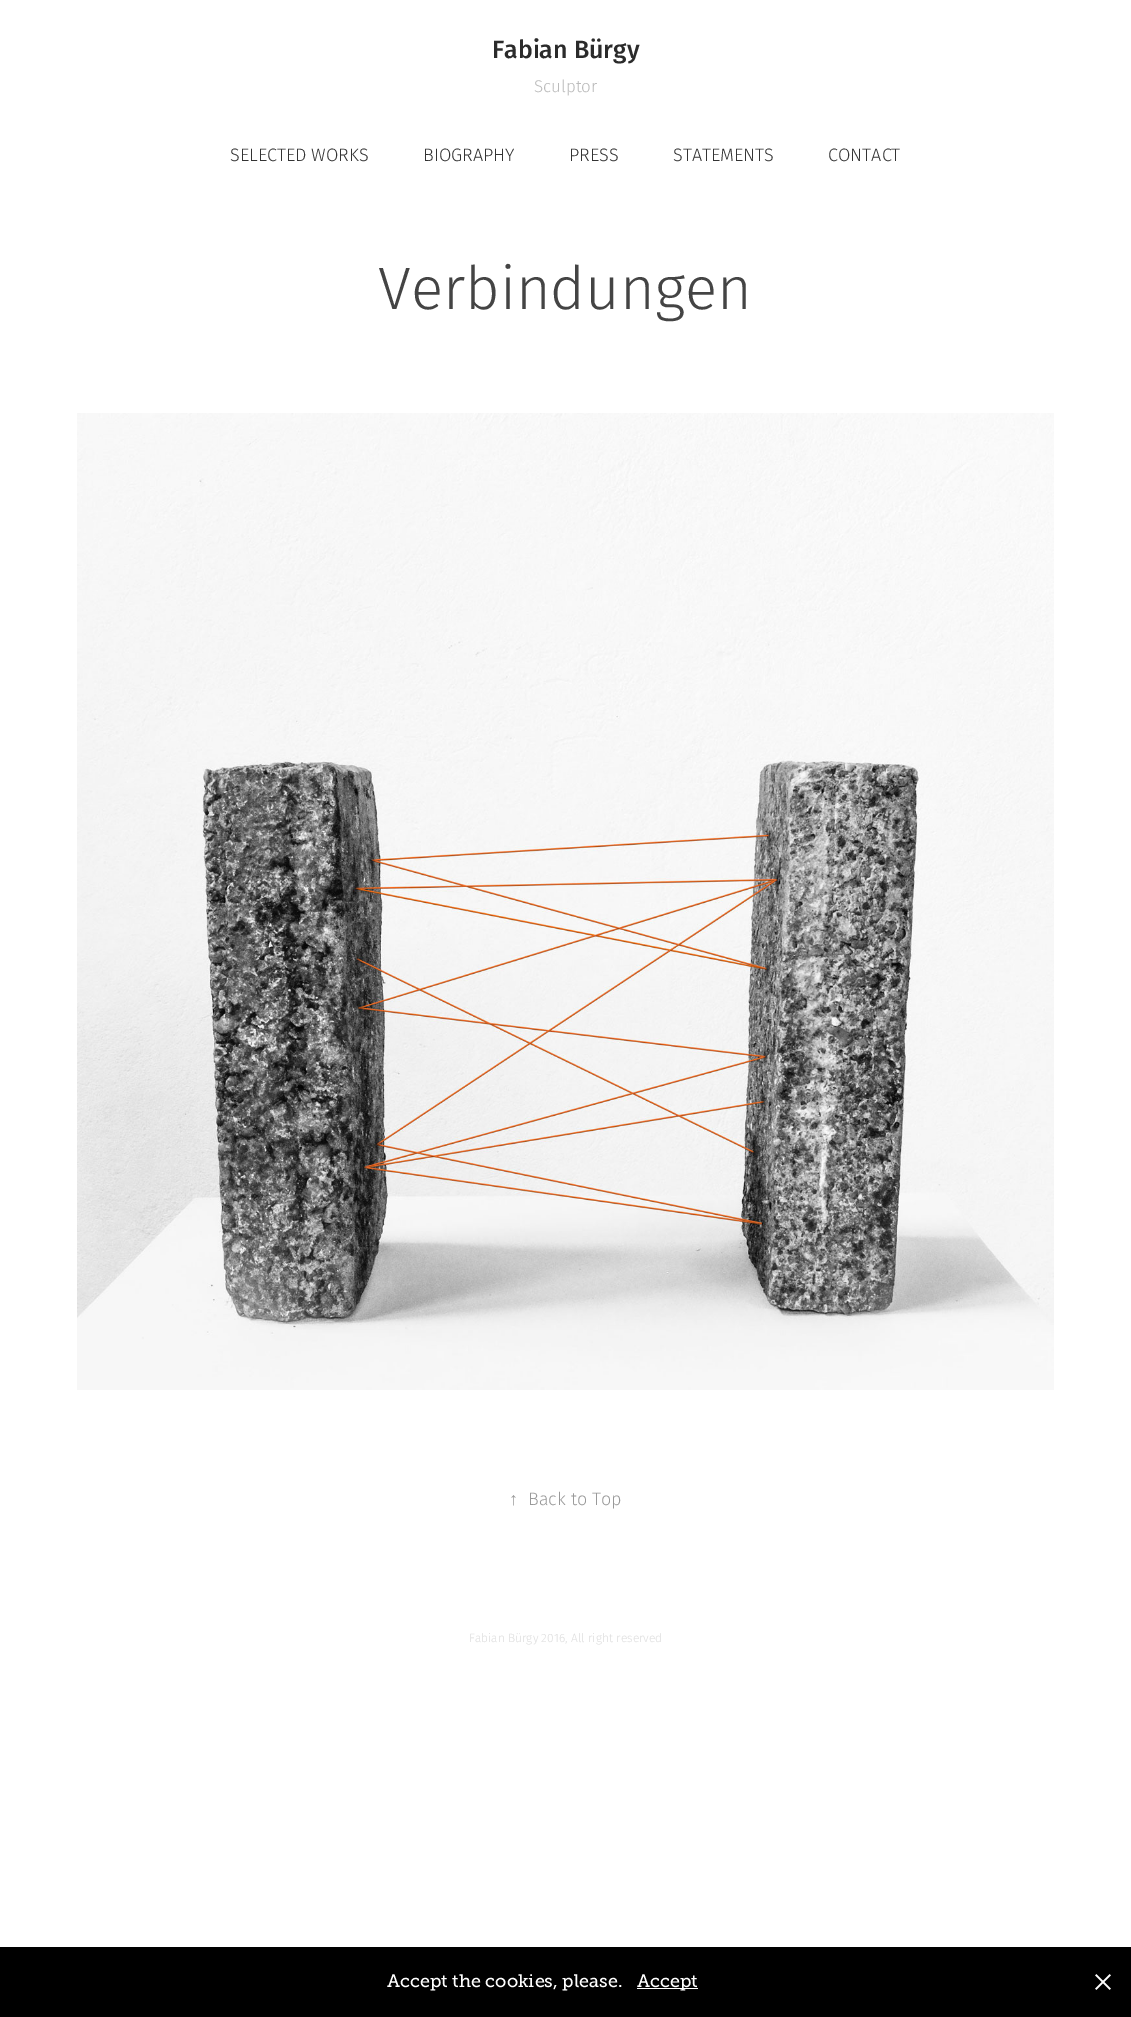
%!PS-Adobe-3.0
%%BoundingBox: 0 0 1131 2017
%%LanguageLevel: 3
%%Pages: 1
%%EndComments
%%BeginProlog
/fn { [ exch dup neg 0 0 3 -1 roll 0 0 ] selectfont } def
/tx { moveto show } def
/bx { rectfill } def
/im { 5 dict begin { /h /w /y /x /name } { exch def } forall
  gsave x y translate w h scale
  w h 8 [w 0 0 h 0 0] name (r) file false 3 colorimage grestore end } def
%%EndProlog
%%BeginSetup
<< /PageSize [1131 2017] >> setpagedevice
%%EndSetup
%%Page: 1 1
0 2017 translate 1 -1 scale
4 setmiterlimit
1 setgray
0 0 1131 2017 bx
/FiraSans-Medium 25 fn
0.169 setgray
(Fabian Bürgy) 492 58 tx
/FiraSans-Light 17 fn
0.733 setgray
(Sculptor) 534 92 tx
/FiraSans-Light 18 fn
0.2 setgray
(SELECTED WORKS) 230 161 tx
(BIOGRAPHY) 423 161 tx
(PRESS) 569 161 tx
(STATEMENTS) 673 161 tx
(CONTACT) 828 161 tx
/FiraSans-Light 60 fn
0.267 setgray
(Verbindungen) 378 309 tx
(image0.raw) 77 413 977 977 im
/LiberationSerif-Regular 18 fn
0.6 setgray
(↑) 509 1505 tx
/FiraSans-Light 18 fn
(Back to Top) 528 1505 tx
/FiraSans-Light 12 fn
0.867 setgray
(Fabian Bürgy 2016, All right reserved) 469 1642 tx
0 setgray
0 1947 1131 70 bx
/MuseoSlab-Regular 18 fn
1 setgray
(Accept the cookies, please.) 387 1987 tx
637 1988 61 1 bx
(Accept) 637 1987 tx
(image1.raw) 1095 1974 16 16 im
showpage
%%EOF
